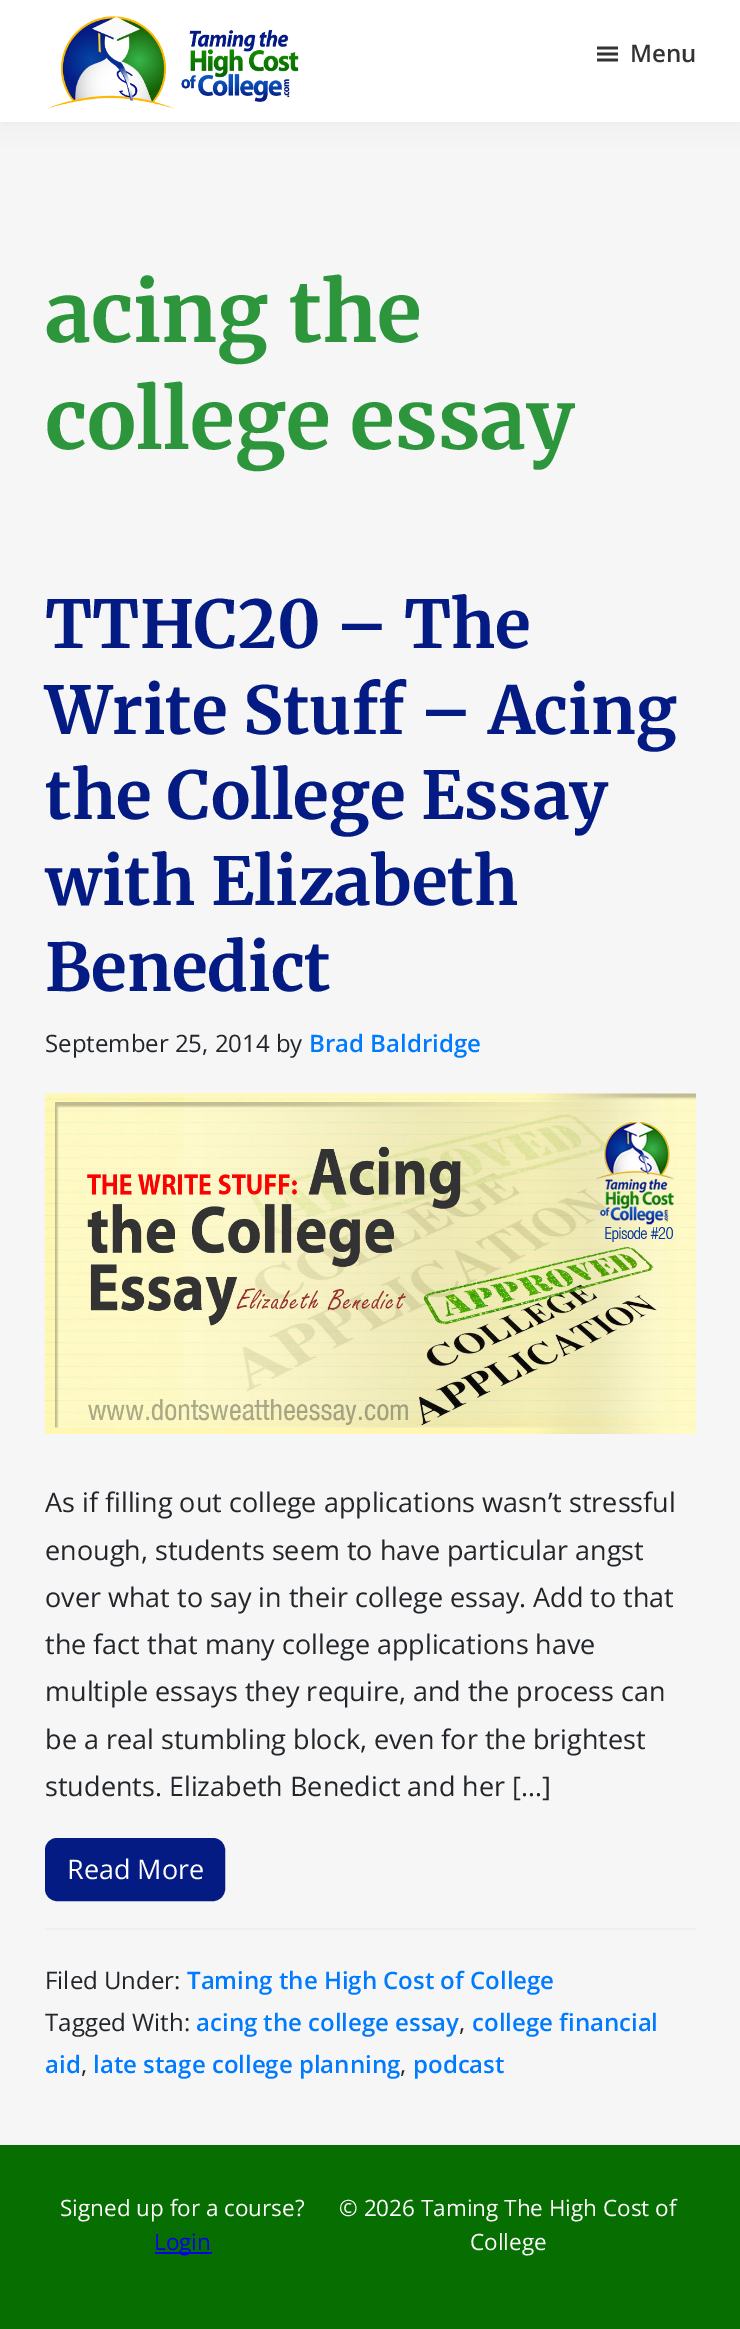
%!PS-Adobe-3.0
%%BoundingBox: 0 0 740 2329
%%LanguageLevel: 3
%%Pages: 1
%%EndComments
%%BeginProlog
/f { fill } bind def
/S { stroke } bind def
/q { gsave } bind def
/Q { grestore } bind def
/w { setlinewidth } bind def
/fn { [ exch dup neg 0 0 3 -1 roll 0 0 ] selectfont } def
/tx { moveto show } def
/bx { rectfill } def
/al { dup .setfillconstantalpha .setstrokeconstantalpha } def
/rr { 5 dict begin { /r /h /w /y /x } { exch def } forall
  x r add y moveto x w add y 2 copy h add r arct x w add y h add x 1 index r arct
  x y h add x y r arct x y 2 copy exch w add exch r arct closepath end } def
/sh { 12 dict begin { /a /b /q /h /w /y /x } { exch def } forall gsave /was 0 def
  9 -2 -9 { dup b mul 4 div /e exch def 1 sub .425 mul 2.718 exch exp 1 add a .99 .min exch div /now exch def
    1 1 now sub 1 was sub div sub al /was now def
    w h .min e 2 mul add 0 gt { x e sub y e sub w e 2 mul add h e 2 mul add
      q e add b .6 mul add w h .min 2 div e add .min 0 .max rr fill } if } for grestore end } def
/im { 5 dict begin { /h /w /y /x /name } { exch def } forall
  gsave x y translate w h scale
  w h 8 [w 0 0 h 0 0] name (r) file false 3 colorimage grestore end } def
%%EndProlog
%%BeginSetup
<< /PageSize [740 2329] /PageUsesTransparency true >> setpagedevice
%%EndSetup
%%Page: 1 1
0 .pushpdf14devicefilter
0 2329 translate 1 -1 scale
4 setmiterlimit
0.965 setgray
0 0 740 2329 bx
0 setgray
0 0 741 122 0 15 0.05 sh
1 setgray
0 0 740 122 bx
(image0.raw) 47 16 252 93 im
(image1.raw) 597 46 21 16 im
/OpenSans-SemiBold 24 fn
0.2 setgray
(Menu) 630 62 tx
/Merriweather-Light 82.5 fn
0.176 0.584 0.231 setrgbcolor
(acing the) 45 342 tx
(college essay) 45 449 tx
/Merriweather-Light 66 fn
0.012 0.106 0.51 setrgbcolor
(TTHC20 – The) 45 648 tx
(Write Stuff – Acing) 45 734 tx
(the College Essay) 45 819 tx
(with Elizabeth) 45 905 tx
(Benedict) 45 991 tx
/OpenSans-Regular 24 fn
0.133 0.149 0.165 setrgbcolor
(September 25, 2014 by) 45 1052 tx
/OpenSans-SemiBold 24 fn
0 0.482 1 setrgbcolor
(Brad Baldridge) 309 1052 tx
(image2.raw) 45 1093 651 341 im
/OpenSans-Regular 27 fn
0.133 0.149 0.165 setrgbcolor
(As if filling out college applications wasn’t stressful) 45 1512 tx
(enough, students seem to have particular angst) 45 1560 tx
(over what to say in their college essay. Add to that) 45 1607 tx
(the fact that many college applications have) 45 1654 tx
(multiple essays they require, and the process can) 45 1701 tx
(be a real stumbling block, even for the brightest) 45 1749 tx
(students. Elizabeth Benedict and her […]) 45 1796 tx
0.012 0.106 0.51 setrgbcolor
46 1839 178 61 11 rr q f Q
2 w
S
1 setgray
(Read More) 67 1879 tx
0.933 setgray
45 1928 651 2 bx
/OpenSans-Regular 24 fn
0.133 0.149 0.165 setrgbcolor
(Filed Under:) 45 1989 tx
/OpenSans-SemiBold 24 fn
0 0.482 1 setrgbcolor
(Taming the High Cost of College) 187 1989 tx
/OpenSans-Regular 24 fn
0.133 0.149 0.165 setrgbcolor
(Tagged With:) 45 2031 tx
/OpenSans-SemiBold 24 fn
0 0.482 1 setrgbcolor
(acing the college essay) 196 2031 tx
/OpenSans-Regular 24 fn
0.133 0.149 0.165 setrgbcolor
(,) 459 2031 tx
/OpenSans-SemiBold 24 fn
0 0.482 1 setrgbcolor
(college financial) 472 2031 tx
(aid) 45 2073 tx
/OpenSans-Regular 24 fn
0.133 0.149 0.165 setrgbcolor
(,) 81 2073 tx
/OpenSans-SemiBold 24 fn
0 0.482 1 setrgbcolor
(late stage college planning) 93 2073 tx
/OpenSans-Regular 24 fn
0.133 0.149 0.165 setrgbcolor
(,) 400 2073 tx
/OpenSans-SemiBold 24 fn
0 0.482 1 setrgbcolor
(podcast) 413 2073 tx
0.027 0.431 0.008 setrgbcolor
0 2145 740 184 bx
/OpenSans-Regular 22.5 fn
1 setgray
(Signed up for a course?) 60 2216 tx
0 0 0.933 setrgbcolor
155 2252 57 2 bx
(Login) 154 2250 tx
1 setgray
(© 2026 Taming The High Cost of) 339 2216 tx
(College) 470 2250 tx
.poppdf14devicefilter showpage
%%EOF
